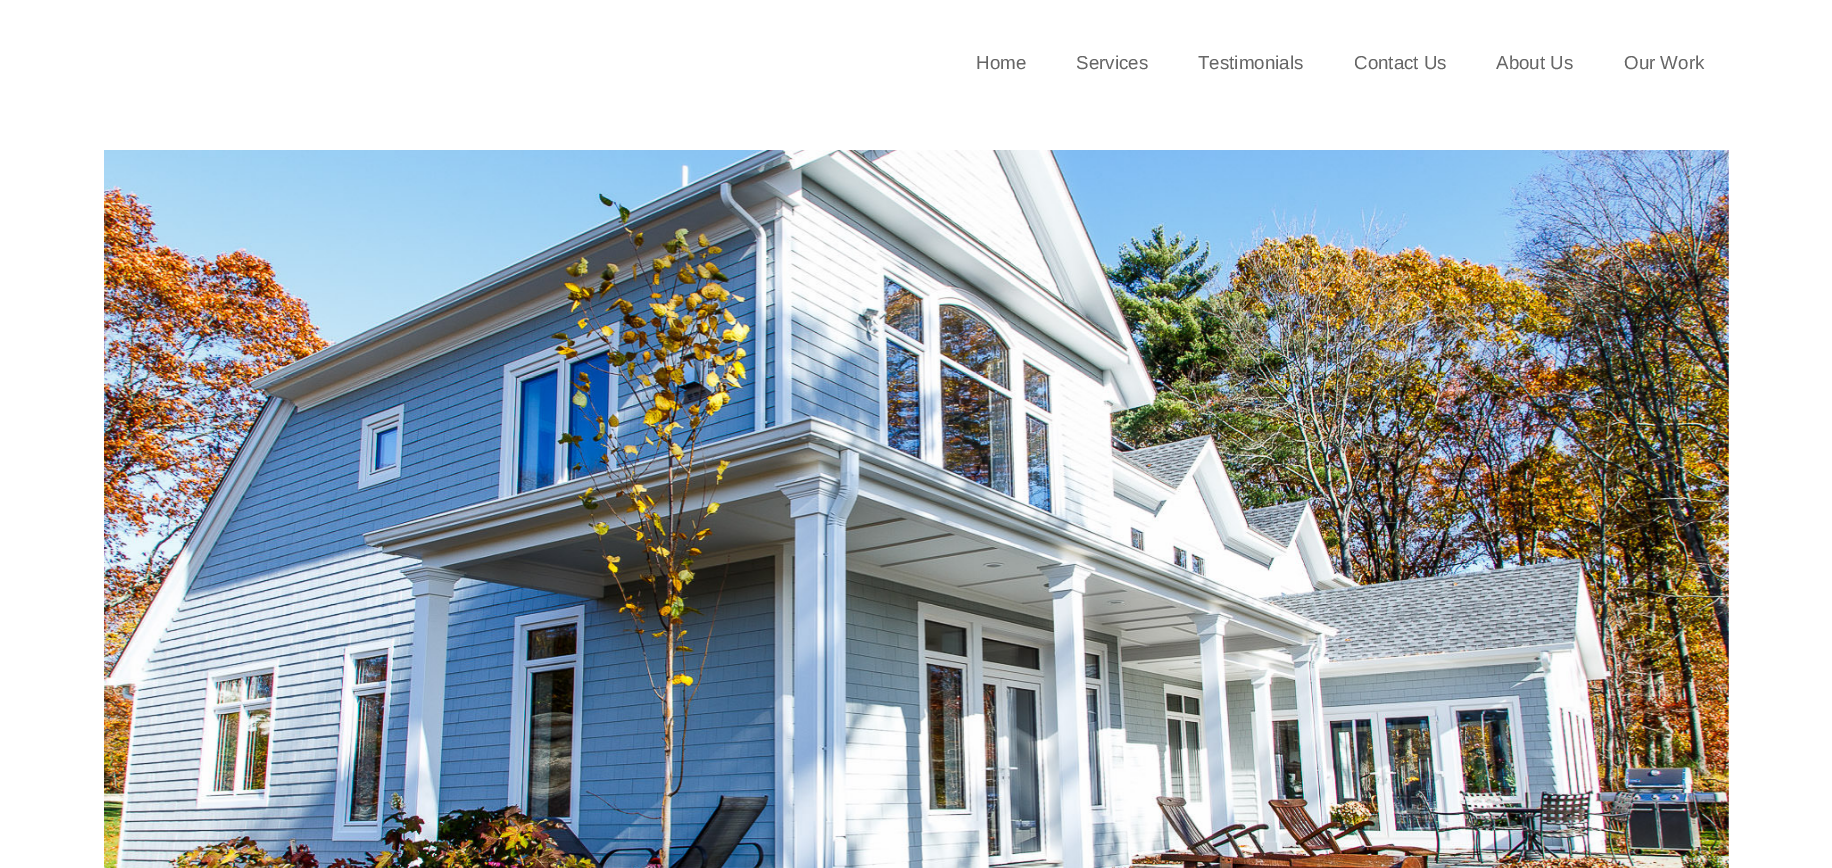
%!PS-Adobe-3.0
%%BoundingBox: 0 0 1832 868
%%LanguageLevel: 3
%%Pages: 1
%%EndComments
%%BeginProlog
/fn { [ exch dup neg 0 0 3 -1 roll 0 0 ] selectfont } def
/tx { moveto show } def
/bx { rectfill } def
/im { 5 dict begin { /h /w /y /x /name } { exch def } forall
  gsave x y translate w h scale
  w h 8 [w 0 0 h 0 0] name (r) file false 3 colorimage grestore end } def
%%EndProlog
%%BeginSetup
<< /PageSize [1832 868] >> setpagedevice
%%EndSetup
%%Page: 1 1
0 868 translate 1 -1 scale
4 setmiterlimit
1 setgray
0 0 1832 868 bx
/LiberationSans-Regular 18.75 fn
0.4 setgray
(Home) 976 69 tx
(Services) 1076 69 tx
(Testimonials) 1198 69 tx
(Contact Us) 1354 69 tx
(About Us) 1496 69 tx
(Our Work) 1624 69 tx
(image0.raw) 104 150 1625 718 im
showpage
%%EOF
